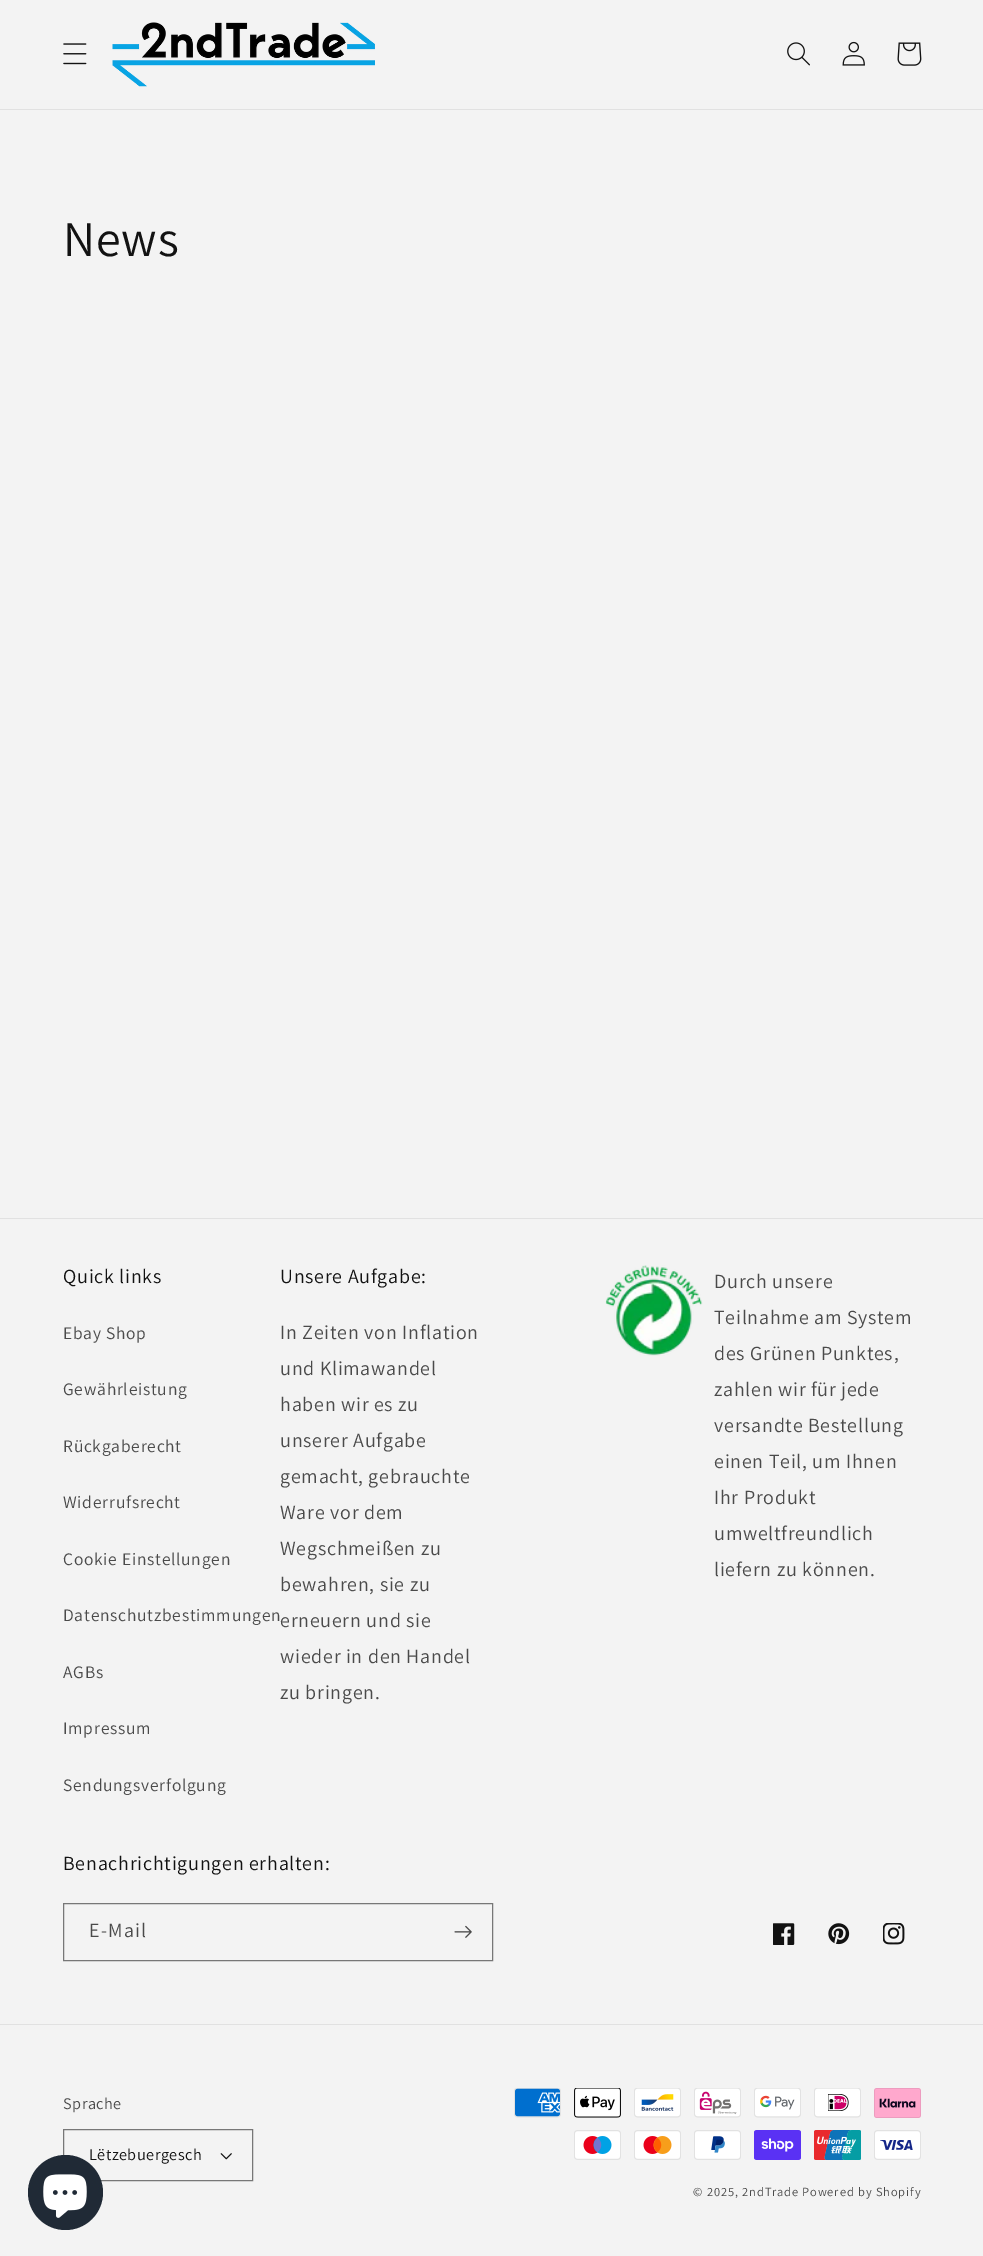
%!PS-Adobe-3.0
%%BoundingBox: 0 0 983 2256
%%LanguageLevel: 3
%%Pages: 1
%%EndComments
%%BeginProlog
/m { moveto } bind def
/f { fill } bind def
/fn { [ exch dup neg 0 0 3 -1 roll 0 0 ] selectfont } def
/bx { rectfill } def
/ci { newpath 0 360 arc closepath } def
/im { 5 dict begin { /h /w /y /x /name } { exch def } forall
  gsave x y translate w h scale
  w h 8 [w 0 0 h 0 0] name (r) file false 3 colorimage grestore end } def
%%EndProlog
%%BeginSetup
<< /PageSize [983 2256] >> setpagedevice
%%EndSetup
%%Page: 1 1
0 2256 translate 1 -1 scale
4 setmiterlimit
0.953 setgray
0 0 983 2256 bx
0.882 setgray
0 109 983 1 bx
(image0.raw) 63 43 24 22 im
(image1.raw) 112 22 263 65 im
(image2.raw) 787 42 23 24 im
(image3.raw) 842 41 23 25 im
(image4.raw) 897 42 25 24 im
/Assistant-Regular 50 fn
0.071 setgray
63 256 m 0.75 0 (News) ashow
0.882 setgray
0 1218 983 1 bx
/Assistant-Regular 20 fn
0.071 setgray
63 1283 m 0.75 0 (Quick links) ashow
/Assistant-Regular 17.5 fn
0.29 setgray
63 1339 m 0.75 0 (Ebay Shop) ashow
63 1395 m 0.75 0 (Gewährleistung) ashow
63 1452 m 0.75 0 (Rückgaberecht) ashow
63 1508 m 0.75 0 (Widerrufsrecht) ashow
63 1565 m 0.75 0 (Cookie Einstellungen) ashow
63 1621 m 0.75 0 (Datenschutzbestimmungen) ashow
63 1678 m 0.75 0 (AGBs) ashow
63 1734 m 0.75 0 (Impressum) ashow
63 1791 m 0.75 0 (Sendungsverfolgung) ashow
/Assistant-Regular 20 fn
0.071 setgray
280 1283 m 0.75 0 (Unsere Aufgabe:) ashow
0.29 setgray
280 1339 m 0.75 0 (In Zeiten von Inflation) ashow
280 1375 m 0.75 0 (und Klimawandel) ashow
280 1411 m 0.75 0 (haben wir es zu) ashow
280 1447 m 0.75 0 (unserer Aufgabe) ashow
280 1483 m 0.75 0 (gemacht, gebrauchte) ashow
280 1519 m 0.75 0 (Ware vor dem) ashow
280 1555 m 0.75 0 (Wegschmeißen zu) ashow
280 1591 m 0.75 0 (bewahren, sie zu) ashow
280 1627 m 0.75 0 (erneuern und sie) ashow
280 1663 m 0.75 0 (wieder in den Handel) ashow
280 1699 m 0.75 0 (zu bringen.) ashow
(image5.raw) 605 1265 98 91 im
714 1288 m 0.75 0 (Durch unsere) ashow
714 1324 m 0.75 0 (Teilnahme am System) ashow
714 1360 m 0.75 0 (des Grünen Punktes,) ashow
714 1396 m 0.75 0 (zahlen wir für jede) ashow
714 1432 m 0.75 0 (versandte Bestellung) ashow
714 1468 m 0.75 0 (einen Teil, um Ihnen) ashow
714 1504 m 0.75 0 (Ihr Produkt) ashow
714 1540 m 0.75 0 (umweltfreundlich) ashow
714 1576 m 0.75 0 (liefern zu können.) ashow
0.071 setgray
63 1870 m 0.75 0 (Benachrichtigungen erhalten:) ashow
0.467 setgray
63.5 1903.5 429 57 rectstroke
0.29 setgray
89 1937 m 1.25 0 (E-Mail) ashow
(image6.raw) 454 1925 18 13 im
(image7.raw) 773 1923 22 22 im
(image8.raw) 828 1923 22 22 im
(image9.raw) 883 1923 22 22 im
0.882 setgray
0 2024 983 1 bx
/Assistant-Regular 16.25 fn
0.29 setgray
63 2109 m 0.5 0 (Sprache) ashow
(image10.raw) 220 2153 12 7 im
0.467 setgray
63.5 2129.5 189 51 rectstroke
0.071 setgray
89 2160 m 0.5 0 (Lëtzebuergesch) ashow
(image11.raw) 514 2088 47 30 im
(image12.raw) 574 2088 47 30 im
(image13.raw) 634 2088 47 30 im
(image14.raw) 694 2088 47 30 im
(image15.raw) 754 2088 47 30 im
(image16.raw) 814 2088 47 30 im
(image17.raw) 874 2088 47 30 im
(image18.raw) 574 2130 47 30 im
(image19.raw) 634 2130 47 30 im
(image20.raw) 694 2130 47 30 im
(image21.raw) 754 2130 47 30 im
(image22.raw) 814 2130 47 30 im
(image23.raw) 874 2130 47 30 im
/Assistant-Regular 12.5 fn
0.29 setgray
693 2196 m 0.9 0 (© 2025, 2ndTrade) ashow
802 2196 m 0.9 0 (Powered by Shopify) ashow
0.125 0.165 0.212 setrgbcolor
65.5 2192.5 37.5 ci f
(image24.raw) 43 2174 44 44 im
showpage
%%EOF
